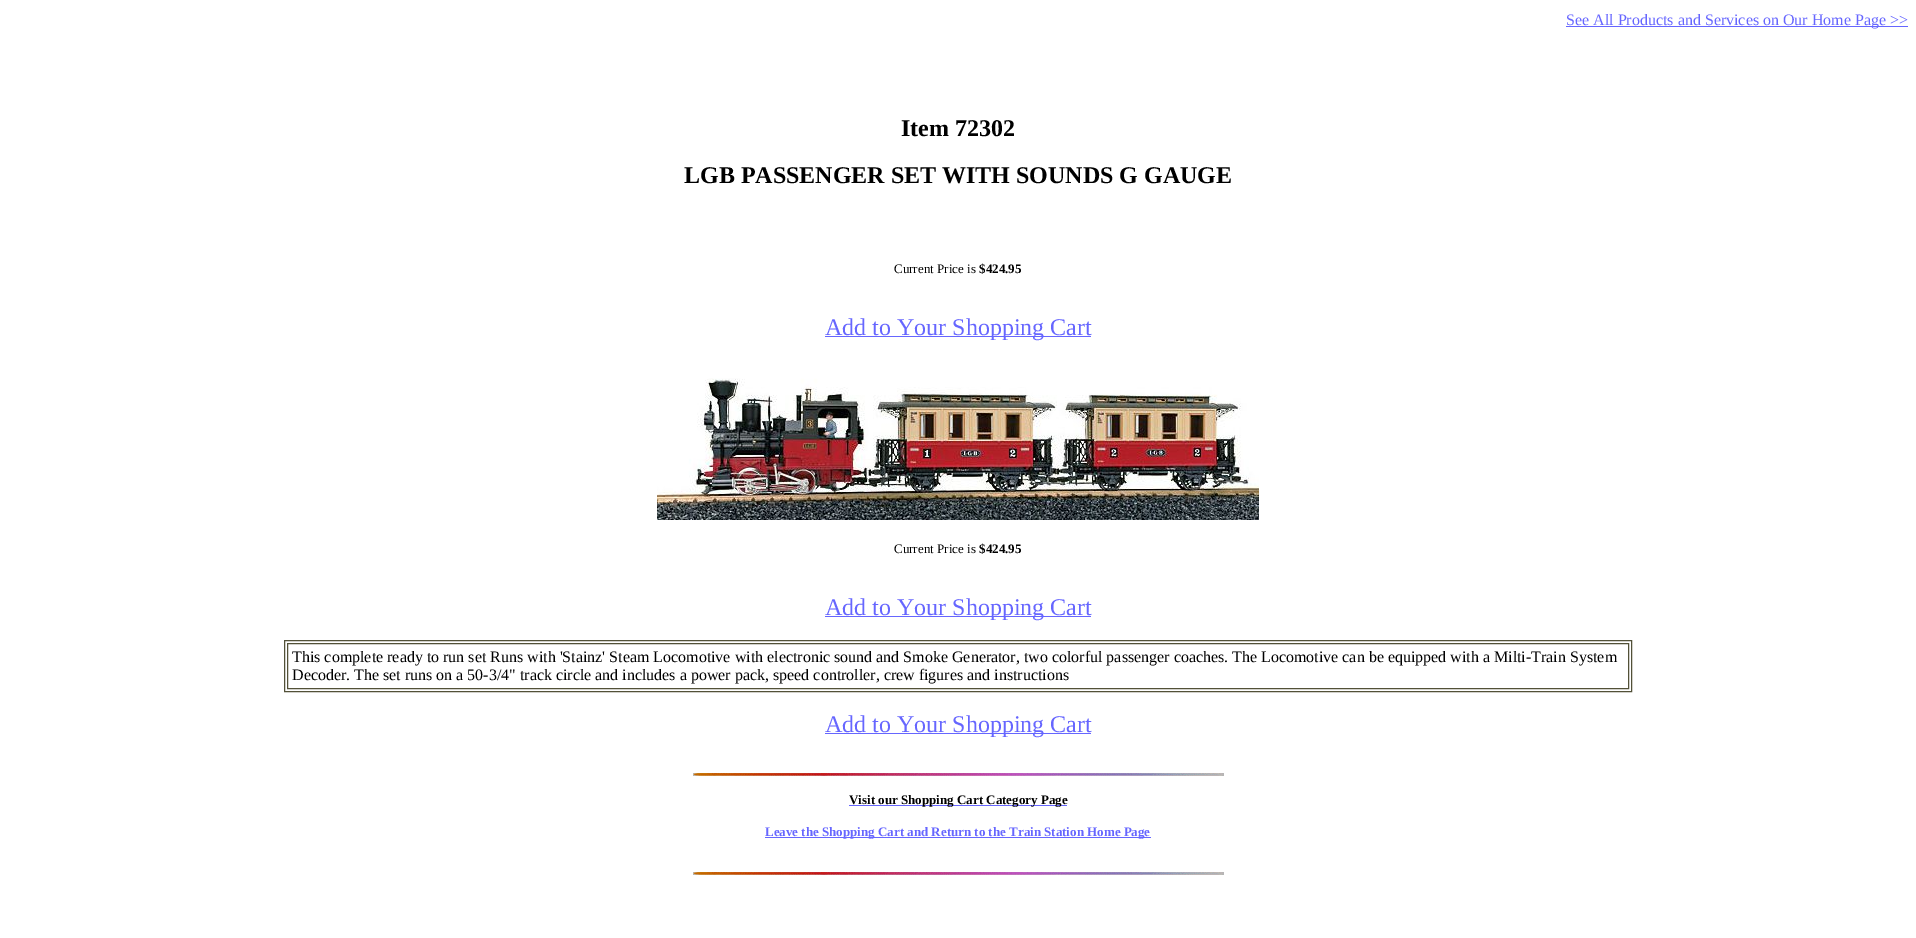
%!PS-Adobe-3.0
%%BoundingBox: 0 0 1916 938
%%LanguageLevel: 3
%%Pages: 1
%%EndComments
%%BeginProlog
/fn { [ exch dup neg 0 0 3 -1 roll 0 0 ] selectfont } def
/tx { moveto show } def
/bx { rectfill } def
/im { 5 dict begin { /h /w /y /x /name } { exch def } forall
  gsave x y translate w h scale
  w h 8 [w 0 0 h 0 0] name (r) file false 3 colorimage grestore end } def
%%EndProlog
%%BeginSetup
<< /PageSize [1916 938] >> setpagedevice
%%EndSetup
%%Page: 1 1
0 938 translate 1 -1 scale
4 setmiterlimit
1 setgray
0 0 1916 938 bx
0.4 0.4 1 setrgbcolor
1566 26 342 1 bx
/LiberationSerif-Regular 16 fn
(See All Products and Services on Our Home Page >>) 1566 25 tx
/LiberationSerif-Bold 24 fn
0 setgray
(Item 72302) 901 136 tx
(LGB PASSENGER SET WITH SOUNDS G GAUGE) 684 183 tx
/LiberationSerif-Regular 13 fn
(Current Price is) 894 273 tx
/LiberationSerif-Bold 13 fn
($424.95) 979 273 tx
0.4 0.4 1 setrgbcolor
825 336 266 1 bx
/LiberationSerif-Regular 24 fn
(Add to Your Shopping Cart) 825 335 tx
(image0.raw) 657 378 602 142 im
/LiberationSerif-Regular 13 fn
0 setgray
(Current Price is) 894 553 tx
/LiberationSerif-Bold 13 fn
($424.95) 979 553 tx
0.4 0.4 1 setrgbcolor
825 616 266 1 bx
/LiberationSerif-Regular 24 fn
(Add to Your Shopping Cart) 825 615 tx
0.322 0.318 0.22 setrgbcolor
284.5 640.5 1347 51 rectstroke
287.5 643.5 1341 45 rectstroke
/LiberationSerif-Regular 16 fn
0 setgray
(This complete ready to run set Runs with 'Stainz' Steam Locomotive with electronic sound and Smoke Generator, two colorful passenger coaches. The Locomotive can be equipped with a Milti-Train System) 292 662 tx
(Decoder. The set runs on a 50-3/4" track circle and includes a power pack, speed controller, crew figures and instructions) 292 680 tx
0.4 0.4 1 setrgbcolor
825 733 266 1 bx
/LiberationSerif-Regular 24 fn
(Add to Your Shopping Cart) 825 732 tx
(image1.raw) 693 773 531 3 im
849 805 218 1 bx
/LiberationSerif-Bold 13 fn
0 setgray
(Visit our Shopping Cart Category Page) 849 804 tx
0.4 0.4 1 setrgbcolor
765 837 386 1 bx
(Leave the Shopping Cart and Return to the Train Station Home Page) 765 836 tx
(image1.raw) 693 872 531 3 im
showpage
%%EOF
